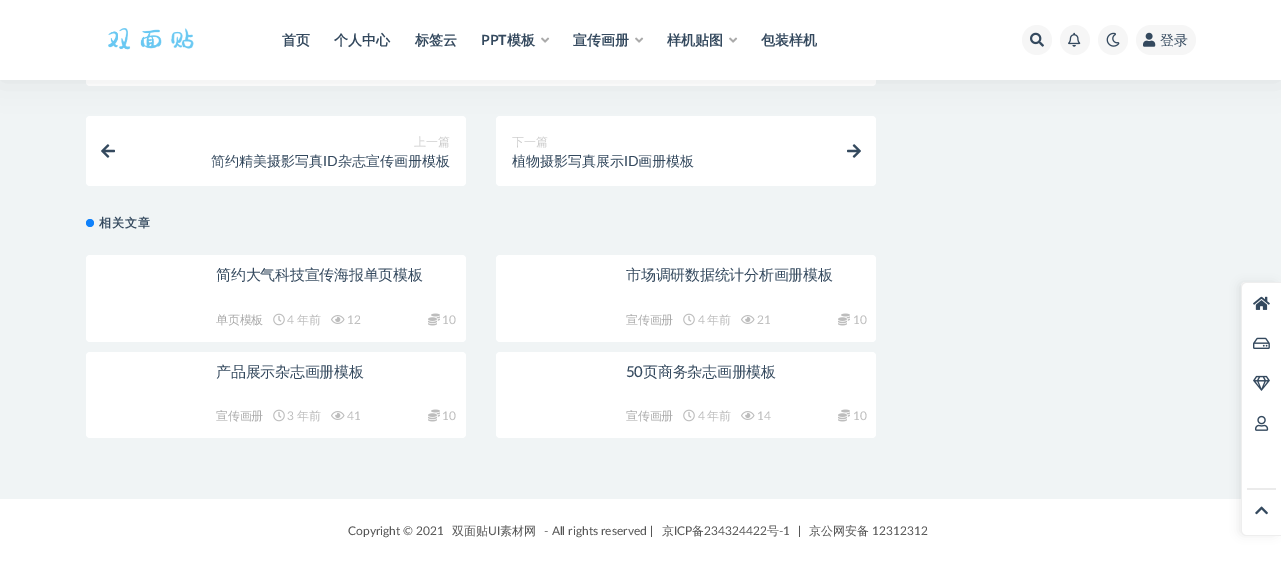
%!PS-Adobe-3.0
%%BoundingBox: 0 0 1281 563
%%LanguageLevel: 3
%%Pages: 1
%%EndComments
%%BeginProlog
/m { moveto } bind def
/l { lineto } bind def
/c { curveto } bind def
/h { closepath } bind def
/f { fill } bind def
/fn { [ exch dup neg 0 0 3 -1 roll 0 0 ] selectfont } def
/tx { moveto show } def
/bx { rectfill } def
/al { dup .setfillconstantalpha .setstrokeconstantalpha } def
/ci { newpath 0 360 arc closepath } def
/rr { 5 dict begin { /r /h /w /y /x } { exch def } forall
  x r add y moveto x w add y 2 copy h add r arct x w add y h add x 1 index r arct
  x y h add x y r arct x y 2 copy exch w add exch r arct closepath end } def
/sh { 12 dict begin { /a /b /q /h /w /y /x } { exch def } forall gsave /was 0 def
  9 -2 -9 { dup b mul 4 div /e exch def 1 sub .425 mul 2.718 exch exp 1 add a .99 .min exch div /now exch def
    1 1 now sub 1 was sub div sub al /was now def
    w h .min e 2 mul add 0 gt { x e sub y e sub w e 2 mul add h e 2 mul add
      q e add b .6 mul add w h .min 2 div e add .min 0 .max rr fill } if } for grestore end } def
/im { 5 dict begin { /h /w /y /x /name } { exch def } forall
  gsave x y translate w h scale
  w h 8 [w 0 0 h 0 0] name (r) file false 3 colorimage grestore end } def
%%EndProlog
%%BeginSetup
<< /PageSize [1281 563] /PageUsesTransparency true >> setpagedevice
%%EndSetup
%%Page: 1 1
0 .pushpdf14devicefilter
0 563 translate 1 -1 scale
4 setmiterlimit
0.941 0.957 0.961 setrgbcolor
0 0 1281 563 bx
1 setgray
86 -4 790 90 4 rr f
86 116 380 70 4 rr f
496 116 380 70 4 rr f
0 setgray
0 0 1281 80 0 15 0.07 sh
1 setgray
0 0 1281 80 bx
(image0.raw) 108 28 86 22 im
/WenQuanYiZenHei-Bold 14 fn
0.204 0.286 0.369 setrgbcolor
(首页) 282 45 tx
(个人中心) 334 45 tx
(标签云) 415 45 tx
/Lato-Bold 14 fn
(PPT) 481 45 tx
/WenQuanYiZenHei-Bold 14 fn
(模板) 507 45 tx
(image1.raw) 541 37 9 6 im
(宣传画册) 573 45 tx
(image1.raw) 635 37 9 6 im
(样机贴图) 667 45 tx
(image1.raw) 729 37 9 6 im
(包装样机) 761 45 tx
0.965 setgray
1037 40 15 ci f
(image2.raw) 1030 32 14 15 im
1075 40 15 ci f
(image3.raw) 1068 32 13 15 im
1113 40 15 ci f
(image4.raw) 1106 32 14 15 im
1136 25 60 30 15 rr f
(image5.raw) 1143 32 13 15 im
/WenQuanYiZenHei-Medium 14 fn
0.204 0.286 0.369 setrgbcolor
(登录) 1160 45 tx
(image6.raw) 101 144 14 14 im
/WenQuanYiZenHei-Medium 12 fn
0.8 setgray
(上一篇) 414 146 tx
/WenQuanYiZenHei-Medium 14 fn
0.204 0.286 0.369 setrgbcolor
(简约精美摄影写真) 211 166 tx
/Lato-Regular 14 fn
(ID) 323 166 tx
/WenQuanYiZenHei-Medium 14 fn
(杂志宣传画册模板) 338 166 tx
/WenQuanYiZenHei-Medium 12 fn
0.8 setgray
(下一篇) 512 146 tx
/WenQuanYiZenHei-Medium 14 fn
0.204 0.286 0.369 setrgbcolor
(植物摄影写真展示) 512 166 tx
/Lato-Regular 14 fn
(ID) 624 166 tx
/WenQuanYiZenHei-Medium 14 fn
(画册模板) 638 166 tx
(image7.raw) 847 144 14 14 im
0.059 0.506 0.984 setrgbcolor
90 223 4 ci f
/WenQuanYiZenHei-Bold 12 fn
0.204 0.286 0.369 setrgbcolor
99 227 m 1 0 (相关文章) ashow
1 setgray
86 255 380 87 4 rr f
/WenQuanYiZenHei-Medium 15 fn
0.204 0.286 0.369 setrgbcolor
216 280 m -0.25 0 (简约大气科技宣传海报单页模板) ashow
/WenQuanYiZenHei-Medium 12 fn
0.667 setgray
216 324 m -0.25 0 (单页模板) ashow
(image8.raw) 273 313 12 13 im
/Lato-Regular 12 fn
0.741 setgray
287 324 m -0.25 0 (4) ashow
/WenQuanYiZenHei-Medium 12 fn
297 324 m -0.25 0 (年前) ashow
(image9.raw) 331 315 14 9 im
/Lato-Regular 12 fn
347 324 m -0.25 0 (12) ashow
(image10.raw) 428 313 12 13 im
442 324 m -0.25 0 (10) ashow
1 setgray
496 255 380 87 4 rr f
/WenQuanYiZenHei-Medium 15 fn
0.204 0.286 0.369 setrgbcolor
626 280 m -0.25 0 (市场调研数据统计分析画册模板) ashow
/WenQuanYiZenHei-Medium 12 fn
0.667 setgray
626 324 m -0.25 0 (宣传画册) ashow
(image8.raw) 683 313 12 13 im
/Lato-Regular 12 fn
0.741 setgray
698 324 m -0.25 0 (4) ashow
/WenQuanYiZenHei-Medium 12 fn
707 324 m -0.25 0 (年前) ashow
(image9.raw) 741 315 14 9 im
/Lato-Regular 12 fn
757 324 m -0.25 0 (21) ashow
(image10.raw) 838 313 12 13 im
853 324 m -0.25 0 (10) ashow
1 setgray
86 352 380 86 4 rr f
/WenQuanYiZenHei-Medium 15 fn
0.204 0.286 0.369 setrgbcolor
216 377 m -0.25 0 (产品展示杂志画册模板) ashow
/WenQuanYiZenHei-Medium 12 fn
0.667 setgray
216 420 m -0.25 0 (宣传画册) ashow
(image8.raw) 273 409 12 13 im
/Lato-Regular 12 fn
0.741 setgray
287 420 m -0.25 0 (3) ashow
/WenQuanYiZenHei-Medium 12 fn
297 420 m -0.25 0 (年前) ashow
(image9.raw) 331 411 14 9 im
/Lato-Regular 12 fn
347 420 m -0.25 0 (41) ashow
(image10.raw) 428 409 12 13 im
442 420 m -0.25 0 (10) ashow
1 setgray
496 352 380 86 4 rr f
/Lato-Medium 15 fn
0.204 0.286 0.369 setrgbcolor
626 377 m -0.25 0 (50) ashow
/WenQuanYiZenHei-Medium 15 fn
643 377 m -0.25 0 (页商务杂志画册模板) ashow
/WenQuanYiZenHei-Medium 12 fn
0.667 setgray
626 420 m -0.25 0 (宣传画册) ashow
(image8.raw) 683 409 12 13 im
/Lato-Regular 12 fn
0.741 setgray
698 420 m -0.25 0 (4) ashow
/WenQuanYiZenHei-Medium 12 fn
707 420 m -0.25 0 (年前) ashow
(image9.raw) 741 411 14 9 im
/Lato-Regular 12 fn
757 420 m -0.25 0 (14) ashow
(image10.raw) 838 409 12 13 im
853 420 m -0.25 0 (10) ashow
1 setgray
0 499 1281 64 bx
0.333 setgray
(Copyright © 2021) 348 535 tx
/WenQuanYiZenHei-Medium 12 fn
(双面贴) 452 535 tx
/Lato-Regular 12 fn
(UI) 488 535 tx
/WenQuanYiZenHei-Medium 12 fn
(素材网) 500 535 tx
/Lato-Regular 12 fn
(- All rights reserved |) 544 535 tx
/WenQuanYiZenHei-Medium 12 fn
(京) 662 535 tx
/Lato-Regular 12 fn
(ICP) 674 535 tx
/WenQuanYiZenHei-Medium 12 fn
(备) 692 535 tx
/Lato-Regular 12 fn
(234324422) 704 535 tx
/WenQuanYiZenHei-Medium 12 fn
(号) 767 535 tx
/Lato-Regular 12 fn
(-1) 779 535 tx
(|) 798 535 tx
/WenQuanYiZenHei-Medium 12 fn
(京公网安备) 809 535 tx
/Lato-Regular 12 fn
(12312312) 872 535 tx
0 setgray
1240 284 36 250 3 5 0.1 sh
1 setgray
1246 282 m 1281 282 l 1281 536 l 1246 536 l 1243 536 1241 534 1241 531 c 1241 287 l 1241 284 1243 282 1246 282 c h f
0.933 setgray
1246 282 m 1281 282 l 1281 536 l 1246 536 l 1243 536 1241 534 1241 531 c 1241 287 l 1241 284 1243 282 1246 282 c h 1246 283 m 1281 283 l 1281 535 l 1246 535 l 1244 535 1242 533 1242 531 c 1242 287 l 1242 285 1244 283 1246 283 c h eofill
(image11.raw) 1253 296 17 14 im
(image12.raw) 1253 337 17 12 im
(image13.raw) 1253 375 17 16 im
(image14.raw) 1255 415 14 16 im
0.922 setgray
1247 488 29 2 bx
(image15.raw) 1255 506 13 9 im
.poppdf14devicefilter showpage
%%EOF
